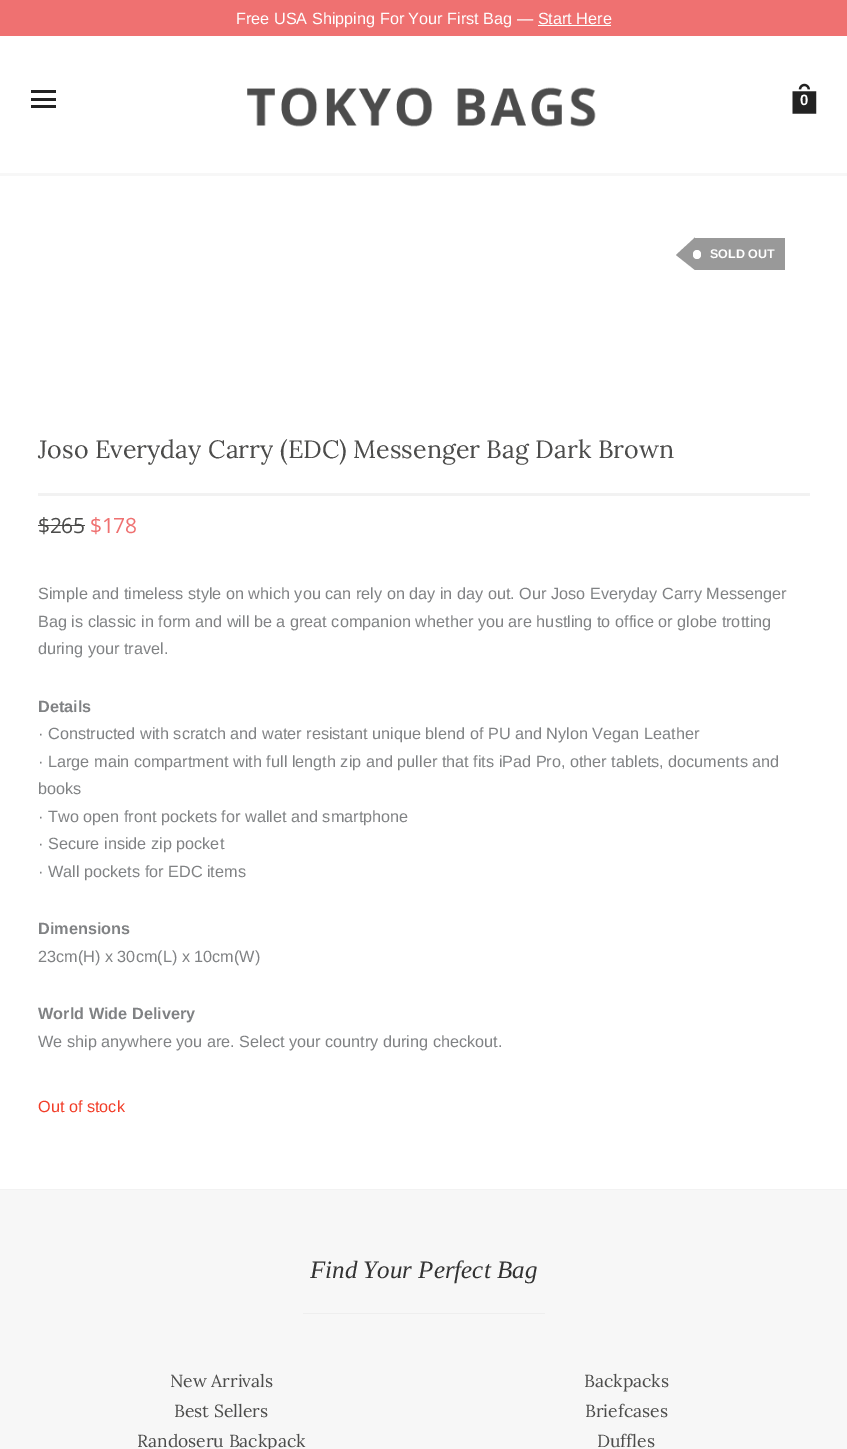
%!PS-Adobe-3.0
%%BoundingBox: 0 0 847 1449
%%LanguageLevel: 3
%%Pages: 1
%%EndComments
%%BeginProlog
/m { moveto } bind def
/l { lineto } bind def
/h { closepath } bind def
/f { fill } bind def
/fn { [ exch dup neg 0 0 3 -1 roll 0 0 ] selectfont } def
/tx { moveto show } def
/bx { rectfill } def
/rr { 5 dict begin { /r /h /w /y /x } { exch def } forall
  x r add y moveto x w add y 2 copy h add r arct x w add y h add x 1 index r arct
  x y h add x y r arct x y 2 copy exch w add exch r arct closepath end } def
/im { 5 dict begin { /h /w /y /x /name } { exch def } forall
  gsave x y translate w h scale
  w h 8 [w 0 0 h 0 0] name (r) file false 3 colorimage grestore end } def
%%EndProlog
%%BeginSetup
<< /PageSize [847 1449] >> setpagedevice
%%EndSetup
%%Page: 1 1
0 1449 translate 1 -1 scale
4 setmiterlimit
1 setgray
0 0 847 1449 bx
0.937 0.443 0.443 setrgbcolor
0 0 847 36 bx
/LiberationSans-Regular 16.25 fn
1 setgray
(Free USA Shipping For Your First Bag — Start Here) 236 24 tx
538 25 73 1 bx
0.969 setgray
0 173 847 3 bx
0.133 setgray
31 98 25 3 bx
31 90 25 3 bx
31 105 25 3 bx
(image0.raw) 247 87 349 40 im
(image1.raw) 792 83 25 31 im
/LiberationSans-Bold 15 fn
1 setgray
(0) 800 105 tx
0.6 setgray
695 238 90 32 bx
695 237.5 m 695 270 l 676 255 l h f
1 setgray
693 250 8 9 4 rr f
/LiberationSans-Bold 12.5 fn
(SOLD OUT) 710 258 tx
0.949 setgray
38 493 772 3 bx
/Lora-Regular 25 fn
0.298 0.298 0.294 setrgbcolor
(Joso Everyday Carry \(EDC\) Messenger Bag Dark Brown) 38 458 tx
/OpenSans-Regular 21 fn
38 533 m -0.5 0 ($265) ashow
38 525 47 1 bx
0.937 0.443 0.443 setrgbcolor
90 533 m -0.5 0 ($178) ashow
/LiberationSans-Regular 16.25 fn
0.502 0.51 0.518 setrgbcolor
(Simple and timeless style on which you can rely on day in day out. Our Joso Everyday Carry Messenger) 38 599 tx
(Bag is classic in form and will be a great companion whether you are hustling to office or globe trotting) 38 627 tx
(during your travel.) 38 654 tx
/LiberationSans-Bold 16.25 fn
(Details) 38 712 tx
/LiberationSans-Regular 16.25 fn
(· Constructed with scratch and water resistant unique blend of PU and Nylon Vegan Leather) 38 739 tx
(· Large main compartment with full length zip and puller that fits iPad Pro, other tablets, documents and) 38 767 tx
(books) 38 794 tx
(· Two open front pockets for wallet and smartphone) 38 822 tx
(· Secure inside zip pocket) 38 849 tx
(· Wall pockets for EDC items) 38 877 tx
/LiberationSans-Bold 16.25 fn
(Dimensions) 38 934 tx
/LiberationSans-Regular 16.25 fn
(23cm\(H\) x 30cm\(L\) x 10cm\(W\)) 38 962 tx
/LiberationSans-Bold 16.25 fn
(World Wide Delivery) 38 1019 tx
/LiberationSans-Regular 16.25 fn
(We ship anywhere you are. Select your country during checkout.) 38 1047 tx
0.949 0.239 0.157 setrgbcolor
(Out of stock) 38 1112 tx
0.969 setgray
0 1190 847 259 bx
0.949 setgray
0 1189 847 1 bx
/LiberationSerif-Italic 25 fn
0.2 setgray
(Find Your Perfect Bag) 310 1278 tx
0.933 setgray
303 1313 242 1 bx
/Lora-Regular 17.5 fn
0.298 0.298 0.294 setrgbcolor
(New Arrivals) 170 1387 tx
(Best Sellers) 174 1417 tx
(Randoseru Backpack) 137 1447 tx
(Backpacks) 584 1387 tx
(Briefcases) 585 1417 tx
(Duffles) 597 1447 tx
showpage
%%EOF
